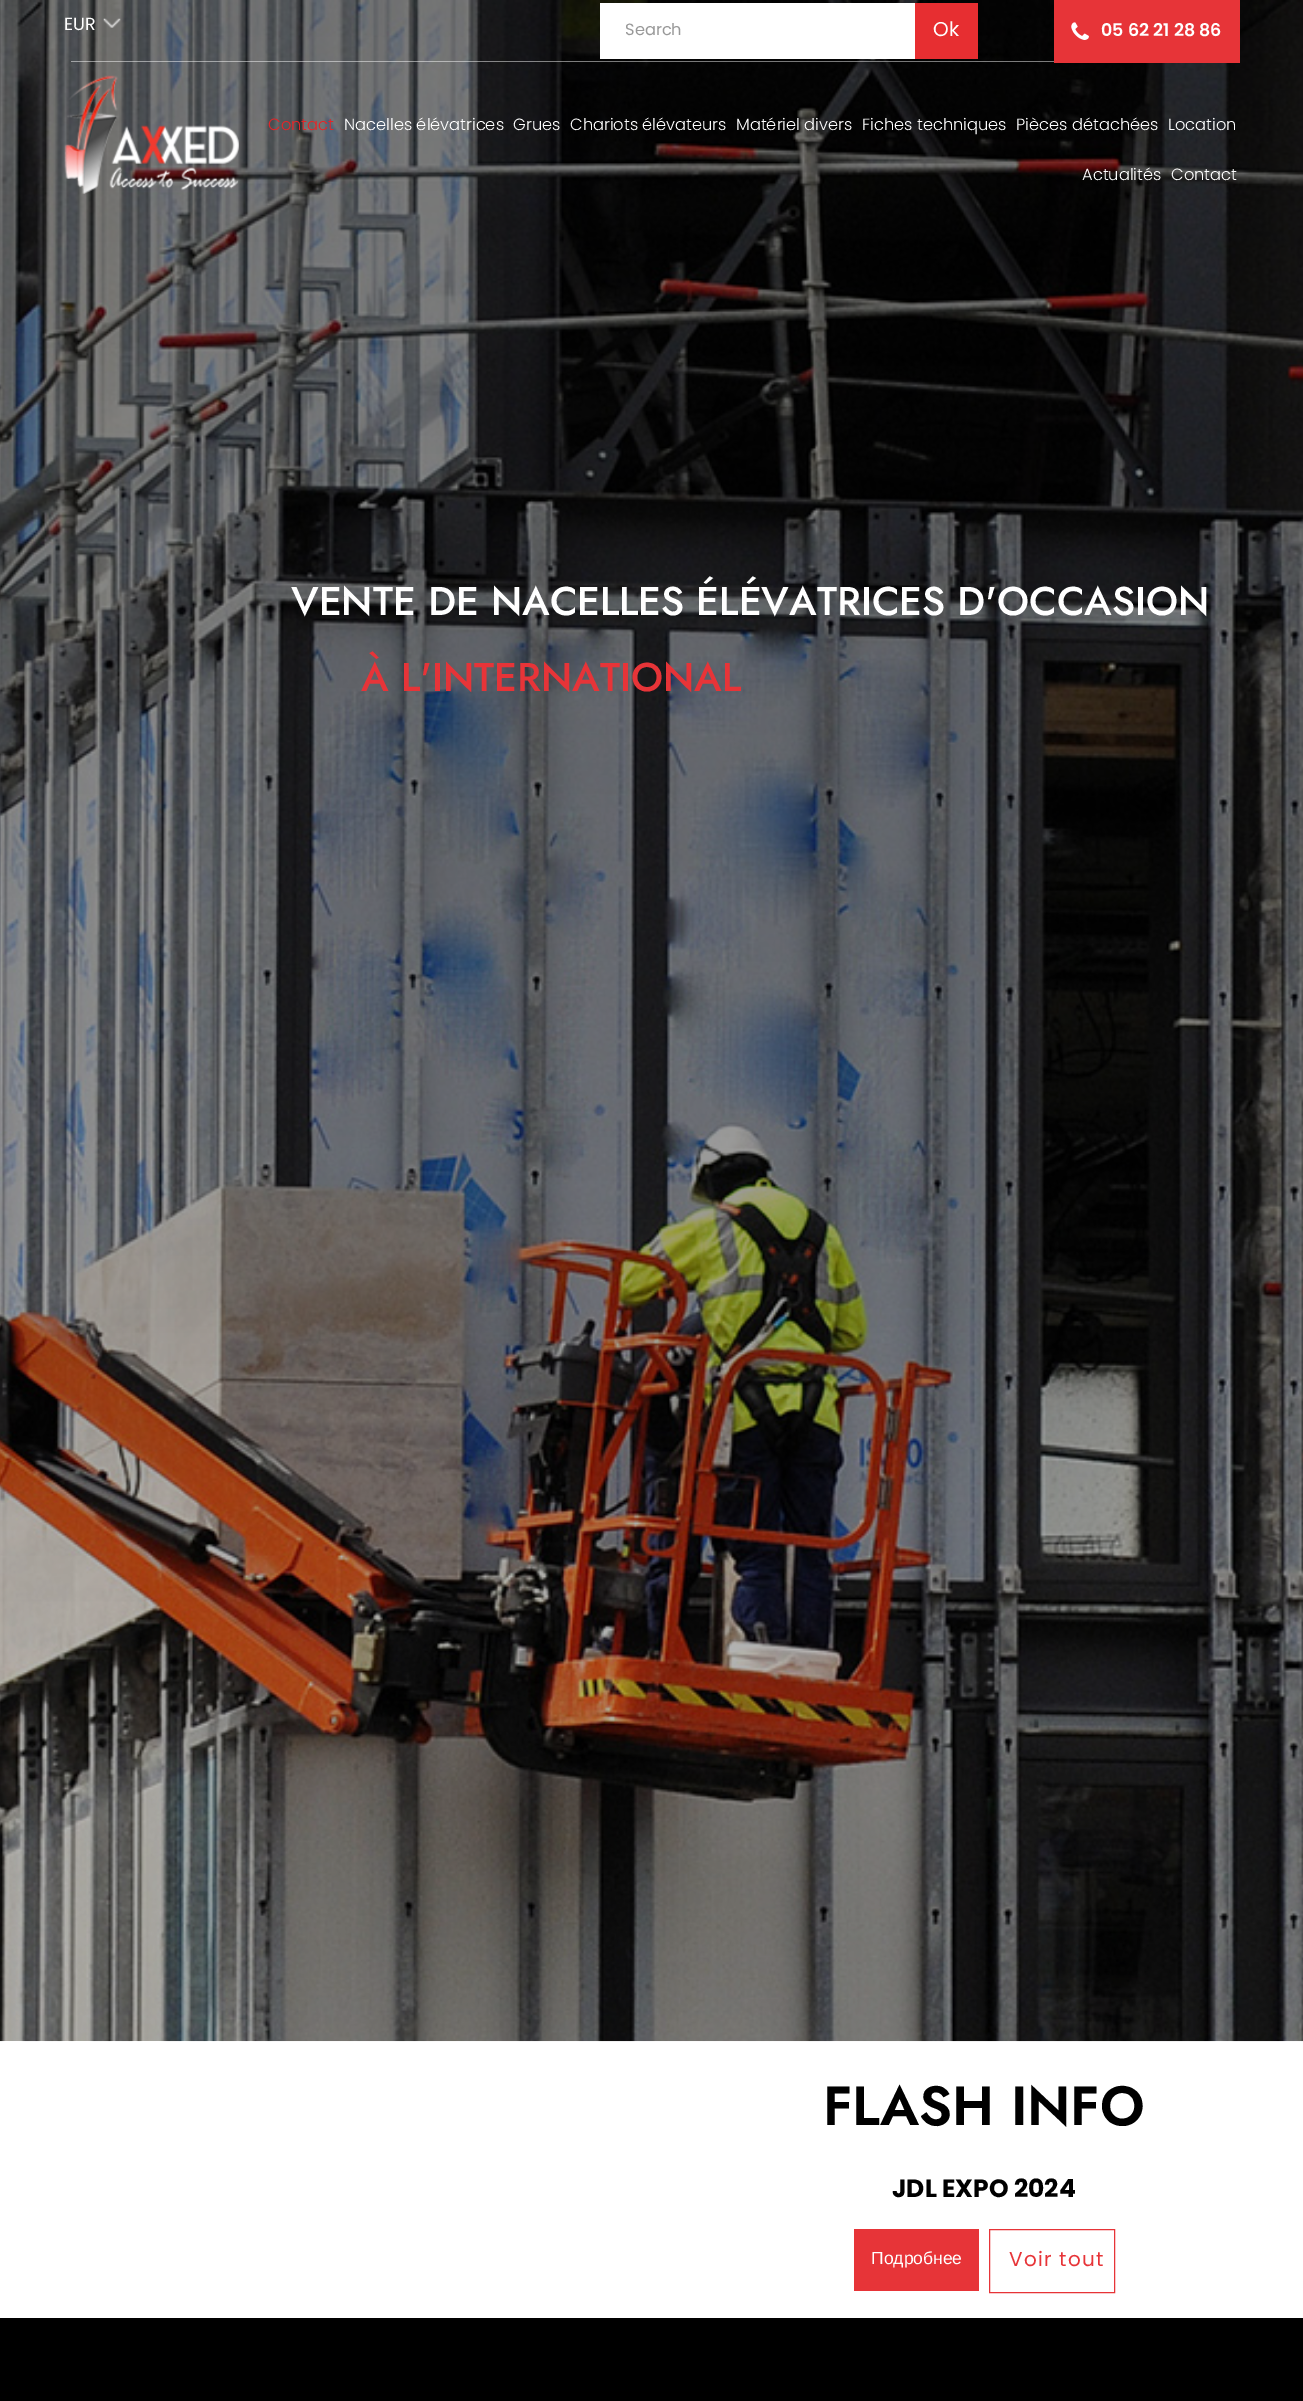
%!PS-Adobe-3.0
%%BoundingBox: 0 0 1303 2401
%%LanguageLevel: 3
%%Pages: 1
%%EndComments
%%BeginProlog
/m { moveto } bind def
/fn { [ exch dup neg 0 0 3 -1 roll 0 0 ] selectfont } def
/tx { moveto show } def
/bx { rectfill } def
/al { dup .setfillconstantalpha .setstrokeconstantalpha } def
/rr { 5 dict begin { /r /h /w /y /x } { exch def } forall
  x r add y moveto x w add y 2 copy h add r arct x w add y h add x 1 index r arct
  x y h add x y r arct x y 2 copy exch w add exch r arct closepath end } def
/sh { 12 dict begin { /a /b /q /h /w /y /x } { exch def } forall gsave /was 0 def
  9 -2 -9 { dup b mul 4 div /e exch def 1 sub .425 mul 2.718 exch exp 1 add a .99 .min exch div /now exch def
    1 1 now sub 1 was sub div sub al /was now def
    w h .min e 2 mul add 0 gt { x e sub y e sub w e 2 mul add h e 2 mul add
      q e add b .6 mul add w h .min 2 div e add .min 0 .max rr fill } if } for grestore end } def
/im { 5 dict begin { /h /w /y /x /name } { exch def } forall
  gsave x y translate w h scale
  w h 8 [w 0 0 h 0 0] name (r) file false 3 colorimage grestore end } def
%%EndProlog
%%BeginSetup
<< /PageSize [1303 2401] /PageUsesTransparency true >> setpagedevice
%%EndSetup
%%Page: 1 1
0 .pushpdf14devicefilter
0 2401 translate 1 -1 scale
4 setmiterlimit
1 setgray
0 0 1303 2401 bx
(image3.raw) 0 0 1303 2042 im
(image4.raw) 0 0 1303 2041 im
/Poppins-Regular 17.5 fn
(EUR) 64 30 tx
(image0.raw) 103 18 18 10 im
0.48 al
71 61 983 1 bx
1 al
0 setgray
600 5 375 56 0 2 0.1 sh
1 setgray
600 3 315 56 bx
/Poppins-Regular 16.25 fn
0.6 setgray
(Search) 625 35 tx
0.906 0.18 0.192 setrgbcolor
915 3 63 56 bx
/Poppins-Regular 20 fn
1 setgray
(Ok) 933 36 tx
0.906 0.204 0.22 setrgbcolor
1054 0 186 63 bx
(image1.raw) 1071 22 18 18 im
/Poppins-SemiBold 17.5 fn
1 setgray
(05 62 21 28 86) 1101 36 tx
(image2.raw) 64 75 175 119 im
/Poppins-Light 16.25 fn
0.902 0.141 0.153 setrgbcolor
(Contact) 268 130 tx
1 setgray
(Nacelles élévatrices) 344 130 tx
(Grues) 513 130 tx
(Chariots élévateurs) 570 130 tx
(Matériel divers) 736 130 tx
(Fiches techniques) 862 130 tx
(Pièces détachées) 1016 130 tx
(Location) 1168 130 tx
(Actualités) 1082 180 tx
(Contact) 1171 180 tx
/Jost-Medium 40 fn
(VENTE DE NACELLES ÉLÉVATRICES D'OCCASION) 291 615 tx
0.906 0.204 0.22 setrgbcolor
(À L'INTERNATIONAL) 361 691 tx
/Jost-SemiBold 55 fn
0 setgray
(FLASH INFO) 823 2125 tx
/Poppins-Bold 25 fn
(JDL EXPO 2024) 892 2197 tx
0.906 0.204 0.22 setrgbcolor
854 2229 125 62 bx
/LiberationSans-Regular 17.5 fn
1 setgray
(Подробнее) 871 2264 tx
0.906 0.204 0.22 setrgbcolor
989.5 2229.5 125 63 rectstroke
/Poppins-Regular 20 fn
1009 2266 m 1.25 0 (Voir tout) ashow
0 setgray
0 2318 1303 83 bx
.poppdf14devicefilter showpage
%%EOF
